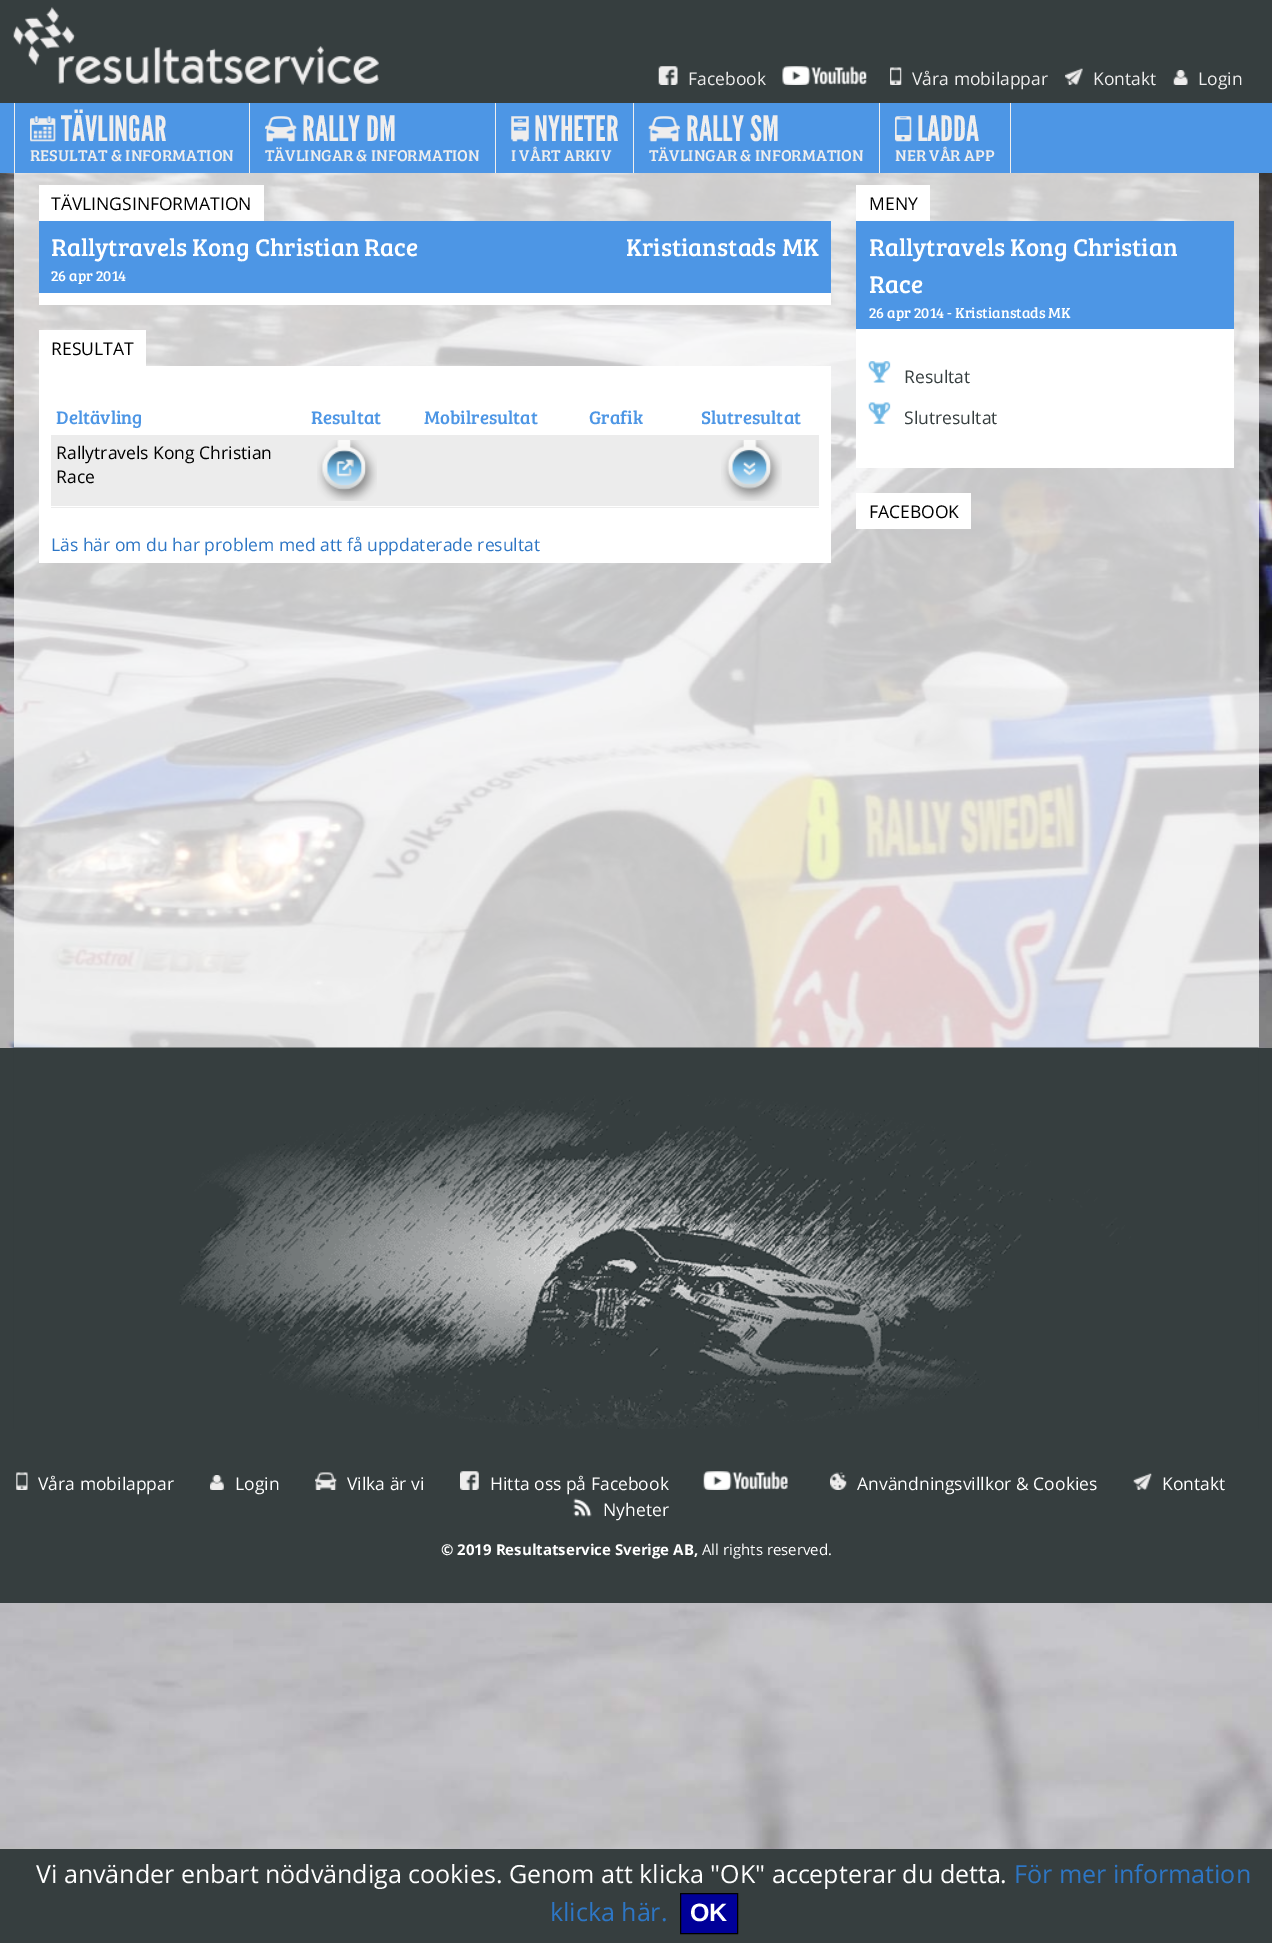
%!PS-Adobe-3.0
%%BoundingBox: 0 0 1272 1943
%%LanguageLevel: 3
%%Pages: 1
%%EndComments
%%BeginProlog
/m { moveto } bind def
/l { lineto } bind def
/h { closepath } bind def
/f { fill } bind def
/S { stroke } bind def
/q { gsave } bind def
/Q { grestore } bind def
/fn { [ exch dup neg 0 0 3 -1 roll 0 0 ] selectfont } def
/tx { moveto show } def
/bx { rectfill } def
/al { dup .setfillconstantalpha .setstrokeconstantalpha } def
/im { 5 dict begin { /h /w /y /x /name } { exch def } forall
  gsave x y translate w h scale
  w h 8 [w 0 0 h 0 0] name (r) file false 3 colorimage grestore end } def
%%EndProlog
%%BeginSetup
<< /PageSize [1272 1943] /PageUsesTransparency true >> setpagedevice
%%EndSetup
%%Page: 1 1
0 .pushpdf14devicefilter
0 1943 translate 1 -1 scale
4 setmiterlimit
1 setgray
0 0 1272 1943 bx
(image0.raw) 0 173 1272 1676 im
0.212 0.243 0.247 setrgbcolor
0 0 1272 103 bx
(image1.raw) 13 7 366 78 im
(image2.raw) 658 66 20 19 im
/OpenSans-Regular 17.5 fn
0.937 0.933 0.933 setrgbcolor
(Facebook) 688 85 tx
(image3.raw) 782 66 85 19 im
(image4.raw) 890 67 12 18 im
(Våra mobilappar) 912 85 tx
(image5.raw) 1065 68 18 17 im
(Kontakt) 1093 85 tx
(image6.raw) 1173 70 15 15 im
(Login) 1198 85 tx
0.302 0.588 0.898 setrgbcolor
0 103 1272 70 bx
0.937 0.933 0.933 setrgbcolor
249 103 1 70 bx
14 103 1 70 bx
(image7.raw) 30 116 26 26 im
/LeagueGothic-Regular 35 fn
(TÄVLINGAR) 61 141 tx
/BreeSerif-Regular 16.25 fn
(RESULTAT & INFORMATION) 30 161 tx
495 103 1 70 bx
(image8.raw) 265 116 32 26 im
/LeagueGothic-Regular 35 fn
(RALLY DM) 302 141 tx
/BreeSerif-Regular 16.25 fn
(TÄVLINGAR & INFORMATION) 265 161 tx
633 103 1 70 bx
(image9.raw) 511 116 18 26 im
/LeagueGothic-Regular 35 fn
(NYHETER) 534 141 tx
/BreeSerif-Regular 16.25 fn
(I VÅRT ARKIV) 511 161 tx
879 103 1 70 bx
(image10.raw) 648 116 32 26 im
/LeagueGothic-Regular 35 fn
(RALLY SM) 686 141 tx
/BreeSerif-Regular 16.25 fn
(TÄVLINGAR & INFORMATION) 649 161 tx
1010 103 1 70 bx
(image11.raw) 895 116 17 26 im
/LeagueGothic-Regular 35 fn
(LADDA) 917 141 tx
/BreeSerif-Regular 16.25 fn
(NER VÅR APP) 895 161 tx
0.76 al
1 setgray
14 173 1245 875 bx
1 al
39 185 225 36 bx
/OpenSans-Regular 17.5 fn
0 setgray
(TÄVLINGSINFORMATION) 51 210 tx
0.302 0.588 0.898 setrgbcolor
39 221 792 72 bx
/BreeSerif-Regular 25 fn
1 setgray
(Rallytravels Kong Christian Race) 51 256 tx
(Kristianstads MK) 626 256 tx
/BreeSerif-Regular 15 fn
(26 apr 2014) 51 281 tx
39 293 792 12 bx
39 330 107 36 bx
/OpenSans-Regular 17.5 fn
0 setgray
(RESULTAT) 51 355 tx
1 setgray
39 366 792 197 bx
/BreeSerif-Regular 18.75 fn
0.302 0.588 0.898 setrgbcolor
(Deltävling) 56 424 tx
(Resultat) 311 424 tx
(Mobilresultat) 424 424 tx
(Grafik) 589 424 tx
(Slutresultat) 701 424 tx
0.925 setgray
51 435 768 73 bx
1 setgray
51 506 768 1 bx
/OpenSans-Regular 17.5 fn
0 setgray
(Rallytravels Kong Christian) 56 459 tx
(Race) 56 483 tx
(image12.raw) 317 440 60 61 im
(image13.raw) 721 440 61 61 im
0.176 0.463 0.773 setrgbcolor
(Läs här om du har problem med att få uppdaterade resultat) 51 551 tx
1 setgray
856 185 74 36 bx
0 setgray
(MENY) 869 210 tx
0.302 0.588 0.898 setrgbcolor
856 221 378 108 bx
/BreeSerif-Regular 25 fn
1 setgray
(Rallytravels Kong Christian) 869 256 tx
(Race) 869 293 tx
/BreeSerif-Regular 15 fn
(26 apr 2014 - Kristianstads MK) 869 318 tx
856 329 378 139 bx
(image14.raw) 868 361 23 22 im
/OpenSans-Regular 17.5 fn
0.212 0.243 0.247 setrgbcolor
(Resultat) 904 383 tx
(image15.raw) 868 402 23 22 im
(Slutresultat) 904 424 tx
1 setgray
856 493 115 36 bx
0 setgray
(FACEBOOK) 869 518 tx
0.212 0.243 0.247 setrgbcolor
0 1048 1272 555 bx
(image16.raw) 13 1047 1246 382 im
(image17.raw) 16 1472 12 18 im
1 setgray
(Våra mobilappar) 38 1490 tx
(image18.raw) 210 1475 14 15 im
(Login) 235 1490 tx
(image19.raw) 315 1472 22 18 im
(Vilka är vi) 347 1490 tx
(image20.raw) 460 1471 19 19 im
(Hitta oss på Facebook) 490 1490 tx
(image21.raw) 703 1471 85 19 im
(image22.raw) 830 1472 17 18 im
(Användningsvillkor & Cookies) 857 1490 tx
(image23.raw) 1133 1473 19 17 im
(Kontakt) 1162 1490 tx
(image24.raw) 573 1498 19 19 im
(Nyheter) 603 1516 tx
/OpenSans-Bold 15 fn
(© 2019 Resultatservice Sverige AB,) 441 1555 tx
/OpenSans-Regular 15 fn
(All rights reserved.) 702 1555 tx
0.212 0.243 0.247 setrgbcolor
0 1849 1272 94 bx
/OpenSans-Regular 25 fn
1 setgray
(Vi använder enbart nödvändiga cookies. Genom att klicka "OK" accepterar du detta.) 36 1883 tx
0.176 0.463 0.773 setrgbcolor
(För mer information) 1014 1883 tx
(klicka här.) 550 1921 tx
0 0 0.6 setrgbcolor
680.5 1893.5 m 737.5 1893.5 l 737.5 1933.5 l 680.5 1933.5 l h q f Q
0 setgray
S
/LiberationSans-Bold 25 fn
1 setgray
(OK) 690 1921 tx
.poppdf14devicefilter showpage
%%EOF
